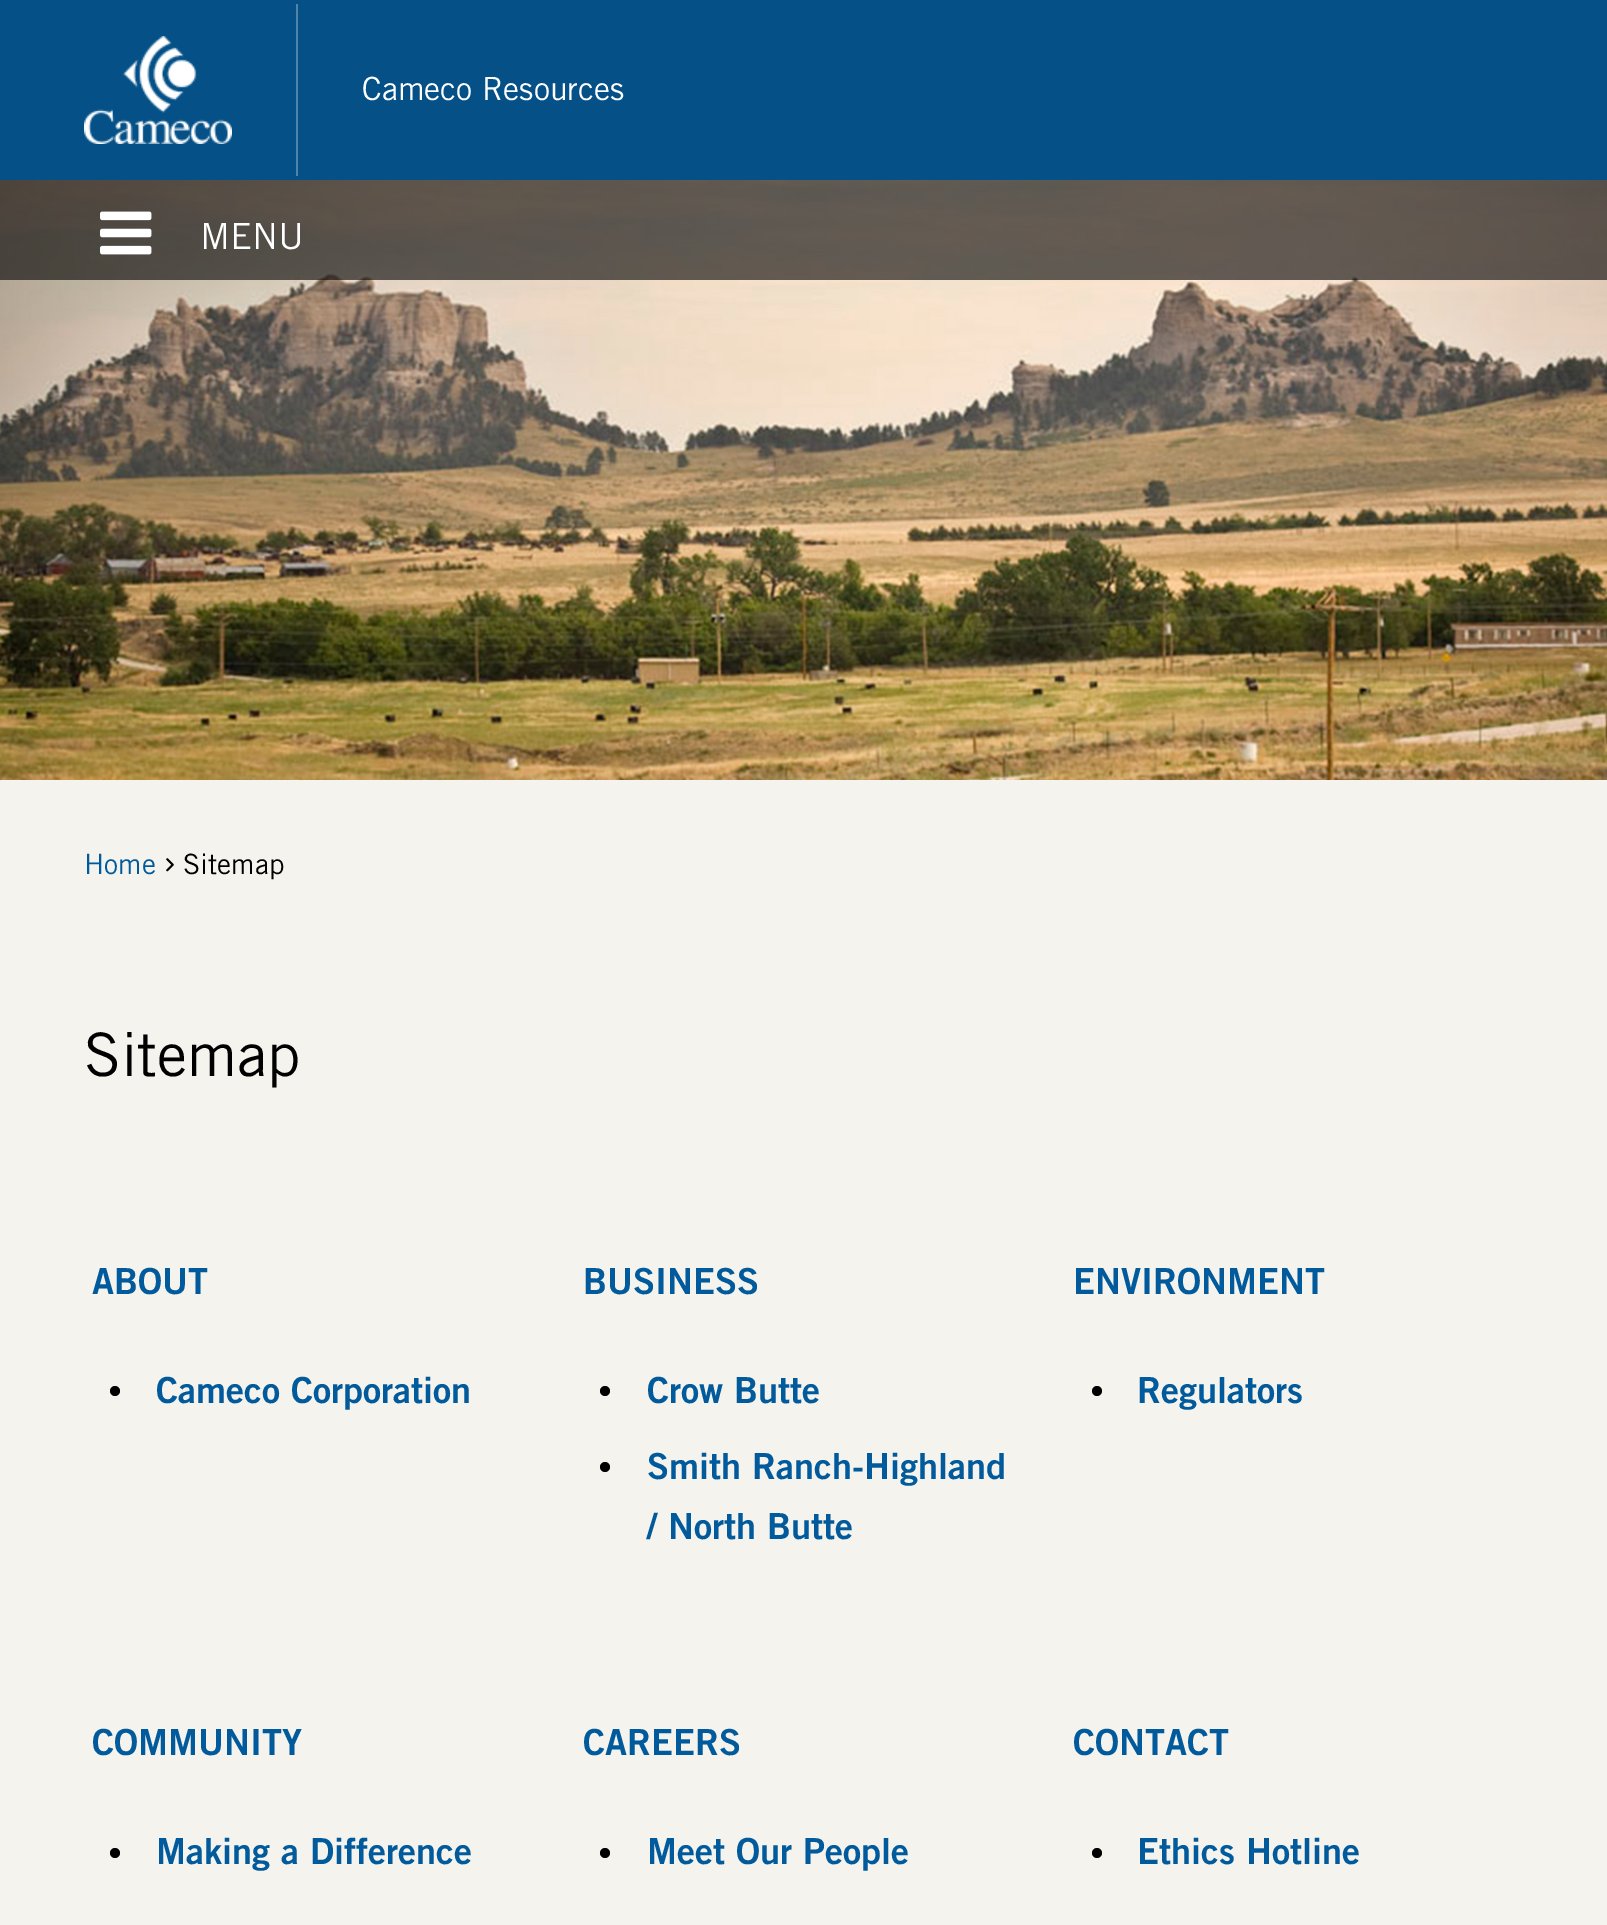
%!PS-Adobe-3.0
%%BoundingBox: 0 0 1607 1925
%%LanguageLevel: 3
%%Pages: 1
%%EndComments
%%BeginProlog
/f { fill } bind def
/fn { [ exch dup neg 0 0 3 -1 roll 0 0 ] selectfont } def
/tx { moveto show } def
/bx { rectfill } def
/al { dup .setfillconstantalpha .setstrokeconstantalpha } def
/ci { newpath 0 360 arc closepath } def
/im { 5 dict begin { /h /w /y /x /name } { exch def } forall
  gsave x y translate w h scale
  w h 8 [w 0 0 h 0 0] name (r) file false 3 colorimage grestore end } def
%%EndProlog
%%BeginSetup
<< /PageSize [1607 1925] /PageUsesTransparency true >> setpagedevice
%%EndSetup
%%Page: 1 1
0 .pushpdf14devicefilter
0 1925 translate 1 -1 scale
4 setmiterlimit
0.961 0.953 0.929 setrgbcolor
0 0 1607 1925 bx
(image2.raw) 0 180 1607 600 im
0.6 al
0 setgray
0 180 1607 100 bx
1 al
0.02 0.318 0.529 setrgbcolor
0 0 1607 180 bx
0.314 0.522 0.671 setrgbcolor
296 4 2 172 bx
(image0.raw) 84 36 148 108 im
/TradeGothic-Regular 32 fn
1 setgray
(Cameco Resources) 362 100 tx
(image1.raw) 100 211 52 44 im
/TradeGothic-Regular 36 fn
(MENU) 200 249 tx
/TradeGothic-Regular 28 fn
0 0.353 0.612 setrgbcolor
(Home) 84 874 tx
(image3.raw) 166 858 8 14 im
0 setgray
(Sitemap) 183 874 tx
/TradeGothic-Regular 60 fn
(Sitemap) 84 1076 tx
/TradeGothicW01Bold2-Bold 36 fn
0 0.353 0.612 setrgbcolor
(ABOUT) 92 1294 tx
0 setgray
115 1391 5 ci f
0 0.353 0.612 setrgbcolor
(Cameco Corporation) 156 1403 tx
(BUSINESS) 583 1294 tx
0 setgray
605 1391 5 ci f
0 0.353 0.612 setrgbcolor
(Crow Butte) 647 1403 tx
0 setgray
605 1467 5 ci f
0 0.353 0.612 setrgbcolor
(Smith Ranch-Highland) 647 1479 tx
(/ North Butte) 647 1539 tx
(ENVIRONMENT) 1073 1294 tx
0 setgray
1097 1391 5 ci f
0 0.353 0.612 setrgbcolor
(Regulators) 1137 1403 tx
(COMMUNITY) 92 1755 tx
0 setgray
115 1853 5 ci f
0 0.353 0.612 setrgbcolor
(Making a Difference) 156 1864 tx
(CAREERS) 583 1755 tx
0 setgray
605 1853 5 ci f
0 0.353 0.612 setrgbcolor
(Meet Our People) 647 1864 tx
(CONTACT) 1073 1755 tx
0 setgray
1097 1853 5 ci f
0 0.353 0.612 setrgbcolor
(Ethics Hotline) 1137 1864 tx
.poppdf14devicefilter showpage
%%EOF
